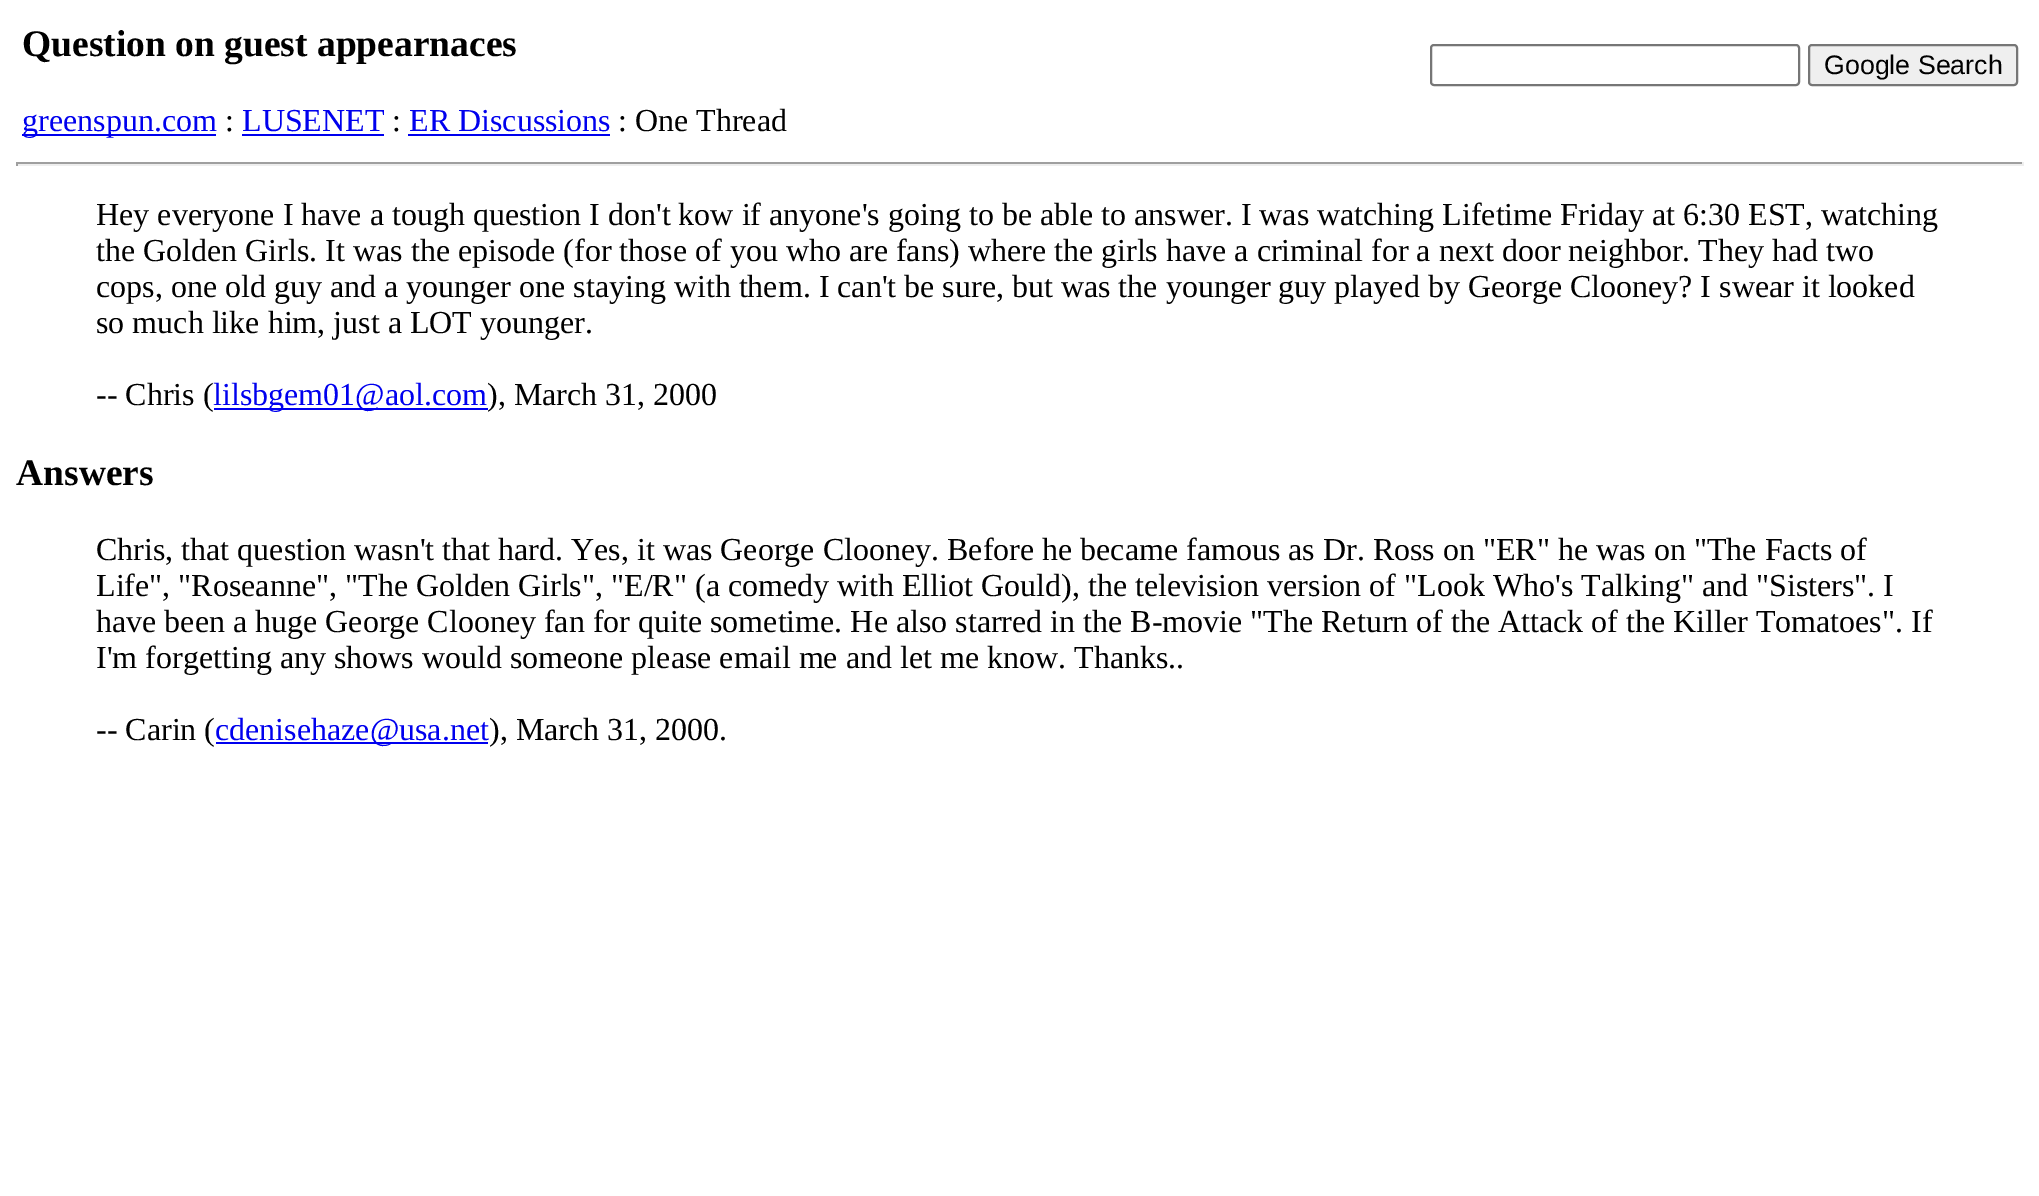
%!PS-Adobe-3.0
%%BoundingBox: 0 0 2039 1196
%%LanguageLevel: 3
%%Pages: 1
%%EndComments
%%BeginProlog
/f { fill } bind def
/S { stroke } bind def
/q { gsave } bind def
/Q { grestore } bind def
/w { setlinewidth } bind def
/fn { [ exch dup neg 0 0 3 -1 roll 0 0 ] selectfont } def
/tx { moveto show } def
/bx { rectfill } def
/rr { 5 dict begin { /r /h /w /y /x } { exch def } forall
  x r add y moveto x w add y 2 copy h add r arct x w add y h add x 1 index r arct
  x y h add x y r arct x y 2 copy exch w add exch r arct closepath end } def
%%EndProlog
%%BeginSetup
<< /PageSize [2039 1196] >> setpagedevice
%%EndSetup
%%Page: 1 1
0 1196 translate 1 -1 scale
4 setmiterlimit
1 setgray
0 0 2039 1196 bx
/LiberationSerif-Bold 37.5 fn
0 setgray
(Question on guest appearnaces) 22 56 tx
0 0 0.933 setrgbcolor
22 134 194 2 bx
/LiberationSerif-Regular 32 fn
(greenspun.com) 22 131 tx
0 setgray
(:) 225 131 tx
0 0 0.933 setrgbcolor
(LUSENET) 242 131 tx
242 134 142 2 bx
0 setgray
(:) 392 131 tx
0 0 0.933 setrgbcolor
(ER Discussions) 409 131 tx
408 134 202 2 bx
0 setgray
(: One Thread) 618 131 tx
0.463 setgray
2 w
1431 45 368 40 3 rr S
0.937 setgray
1809 45 208 40 3 rr q f Q
0.463 setgray
S
/LiberationSans-Regular 26.75 fn
0 setgray
(Google Search) 1824 74 tx
0.624 setgray
16 162 2008 2 bx
0.933 setgray
2022 162 2 4 bx
16 164 2008 2 bx
0.624 setgray
16 162 2 4 bx
/LiberationSerif-Regular 32 fn
0 setgray
(Hey everyone I have a tough question I don't kow if anyone's going to be able to answer. I was watching Lifetime Friday at 6:30 EST, watching) 96 225 tx
(the Golden Girls. It was the episode \(for those of you who are fans\) where the girls have a criminal for a next door neighbor. They had two) 96 261 tx
(cops, one old guy and a younger one staying with them. I can't be sure, but was the younger guy played by George Clooney? I swear it looked) 96 297 tx
(so much like him, just a LOT younger.) 96 333 tx
(-- Chris \() 96 405 tx
0 0 0.933 setrgbcolor
214 408 274 2 bx
(lilsbgem01@aol.com) 213 405 tx
0 setgray
(\), March 31, 2000) 487 405 tx
/LiberationSerif-Bold 37.5 fn
(Answers) 16 485 tx
/LiberationSerif-Regular 32 fn
(Chris, that question wasn't that hard. Yes, it was George Clooney. Before he became famous as Dr. Ross on "ER" he was on "The Facts of) 96 560 tx
(Life", "Roseanne", "The Golden Girls", "E/R" \(a comedy with Elliot Gould\), the television version of "Look Who's Talking" and "Sisters". I) 96 596 tx
(have been a huge George Clooney fan for quite sometime. He also starred in the B-movie "The Return of the Attack of the Killer Tomatoes". If) 96 632 tx
(I'm forgetting any shows would someone please email me and let me know. Thanks..) 96 668 tx
(-- Carin \() 96 740 tx
0 0 0.933 setrgbcolor
216 742 272 2 bx
(cdenisehaze@usa.net) 215 740 tx
0 setgray
(\), March 31, 2000.) 489 740 tx
showpage
%%EOF
